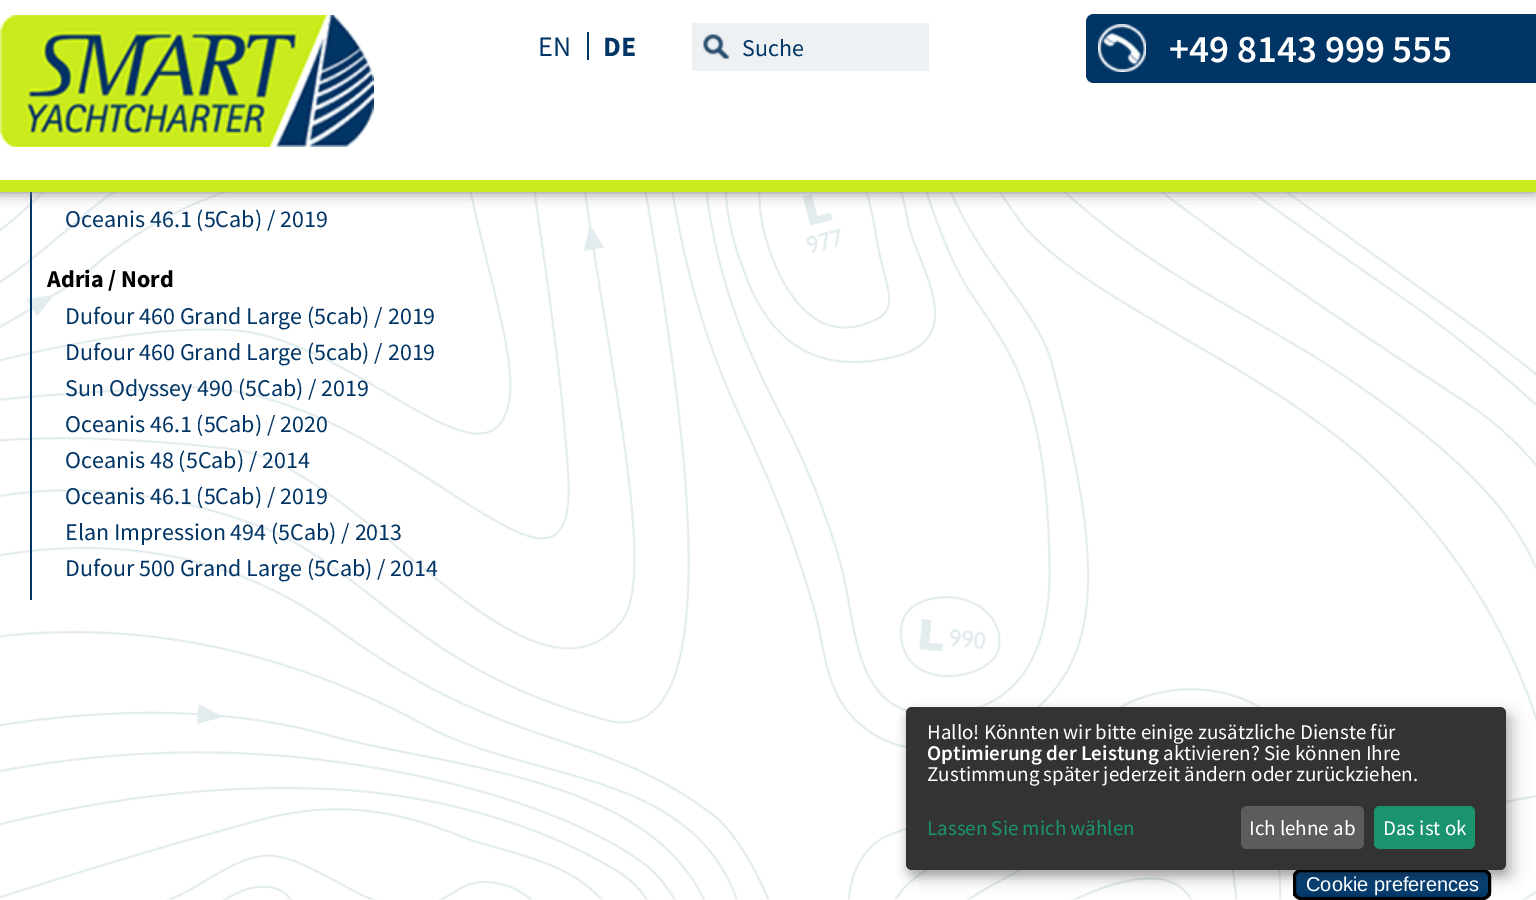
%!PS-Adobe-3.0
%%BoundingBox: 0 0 1536 900
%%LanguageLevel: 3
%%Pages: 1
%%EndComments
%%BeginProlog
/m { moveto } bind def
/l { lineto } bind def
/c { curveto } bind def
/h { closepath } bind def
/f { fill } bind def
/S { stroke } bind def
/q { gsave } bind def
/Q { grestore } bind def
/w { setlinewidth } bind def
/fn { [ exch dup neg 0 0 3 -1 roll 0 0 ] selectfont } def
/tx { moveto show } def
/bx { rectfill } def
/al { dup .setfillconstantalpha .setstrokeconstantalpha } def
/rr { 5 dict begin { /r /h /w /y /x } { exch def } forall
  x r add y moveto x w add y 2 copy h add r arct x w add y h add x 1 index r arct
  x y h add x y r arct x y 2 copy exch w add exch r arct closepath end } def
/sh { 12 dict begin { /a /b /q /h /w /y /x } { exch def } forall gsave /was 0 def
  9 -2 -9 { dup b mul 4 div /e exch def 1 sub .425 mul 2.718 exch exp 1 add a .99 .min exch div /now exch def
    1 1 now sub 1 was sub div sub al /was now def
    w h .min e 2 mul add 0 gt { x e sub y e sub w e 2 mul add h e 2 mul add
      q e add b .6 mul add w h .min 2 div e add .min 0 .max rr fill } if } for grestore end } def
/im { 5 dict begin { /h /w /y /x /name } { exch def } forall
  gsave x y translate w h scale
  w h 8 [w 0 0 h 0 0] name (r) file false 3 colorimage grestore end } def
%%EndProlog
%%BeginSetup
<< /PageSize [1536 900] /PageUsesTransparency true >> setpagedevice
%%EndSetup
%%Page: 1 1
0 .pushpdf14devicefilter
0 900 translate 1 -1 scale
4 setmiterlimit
1 setgray
0 0 1536 900 bx
(image3.raw) 0 192 1536 708 im
0 0.208 0.396 setrgbcolor
30 192 2 408 bx
0.467 setgray
0 0 1536 192 0 7 1 sh
1 setgray
0 0 1536 180 bx
0.792 0.922 0.114 setrgbcolor
0 180 1536 12 bx
(image0.raw) 0 15 374 132 im
0 0.208 0.396 setrgbcolor
587 32 2 28 bx
/SourceSansPro-Regular 28 fn
(EN) 538 56 tx
/SourceSansPro-Bold 28 fn
(DE) 603 56 tx
0.929 0.945 0.957 setrgbcolor
692 23 237 48 bx
(image1.raw) 703 34 27 25 im
/SourceSansPro-Regular 24 fn
0 0.208 0.396 setrgbcolor
(Suche) 742 56 tx
1094 14 m 1536 14 l 1536 83 l 1094 83 l 1089.5 83 1086 79.5 1086 75 c 1086 22 l 1086 17.5 1089.5 14 1094 14 c h f
(image2.raw) 1098 24 48 48 im
/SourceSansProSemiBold-SemiBold 39 fn
1 setgray
(+49 8143 999 555) 1169 62 tx
/SourceSansPro-Regular 24 fn
0 0.208 0.396 setrgbcolor
(Oceanis 46.1 \(5Cab\) / 2019) 65 227 tx
/SourceSansPro-Bold 24 fn
0 setgray
(Adria / Nord) 47 287 tx
/SourceSansPro-Regular 24 fn
0 0.208 0.396 setrgbcolor
(Dufour 460 Grand Large \(5cab\) / 2019) 65 324 tx
(Dufour 460 Grand Large \(5cab\) / 2019) 65 360 tx
(Sun Odyssey 490 \(5Cab\) / 2019) 65 396 tx
(Oceanis 46.1 \(5Cab\) / 2020) 65 432 tx
(Oceanis 48 \(5Cab\) / 2014) 65 468 tx
(Oceanis 46.1 \(5Cab\) / 2019) 65 504 tx
(Elan Impression 494 \(5Cab\) / 2013) 65 540 tx
(Dufour 500 Grand Large \(5Cab\) / 2014) 65 576 tx
q
1293 869 198 31 8 rr clip newpath
q 1293 872 m 1491 872 l 1491 897 l 1293 897 l h clip newpath
<< /ShadingType 2 /ColorSpace /DeviceRGB /Coords [1392 872 1392 897] /Extend [true true] /Function << /FunctionType 2 /Domain [0 1] /C0 [0.067 0.306 0.525] /C1 [0 0.212 0.4] /N 1 >> >> shfill Q
Q
0 setgray
3 w
1294.5 870.5 195 28 6.5 rr S
914 714 600 164 6 7.5 0.19 sh
906 713 600 163 6 4.5 0.2 sh
0.2 setgray
906 707 600 163 6 rr f
/SourceSansPro-Regular 21 fn
1 setgray
(Hallo! Könnten wir bitte einige zusätzliche Dienste für) 927 739 tx
/SourceSansProSemiBold-SemiBold 21 fn
(Optimierung der Leistung) 927 760 tx
/SourceSansPro-Regular 21 fn
(aktivieren? Sie können Ihre) 1163 760 tx
(Zustimmung später jederzeit ändern oder zurückziehen.) 927 781 tx
0.102 0.576 0.435 setrgbcolor
(Lassen Sie mich wählen) 927 835 tx
0.361 setgray
1241 806 123 43 6 rr f
1 setgray
(Ich lehne ab) 1249 835 tx
0.102 0.576 0.435 setrgbcolor
1374 806 101 43 6 rr f
1 setgray
(Das ist ok) 1383 835 tx
/LiberationSans-Regular 20 fn
(Cookie preferences) 1306 891 tx
.poppdf14devicefilter showpage
%%EOF
